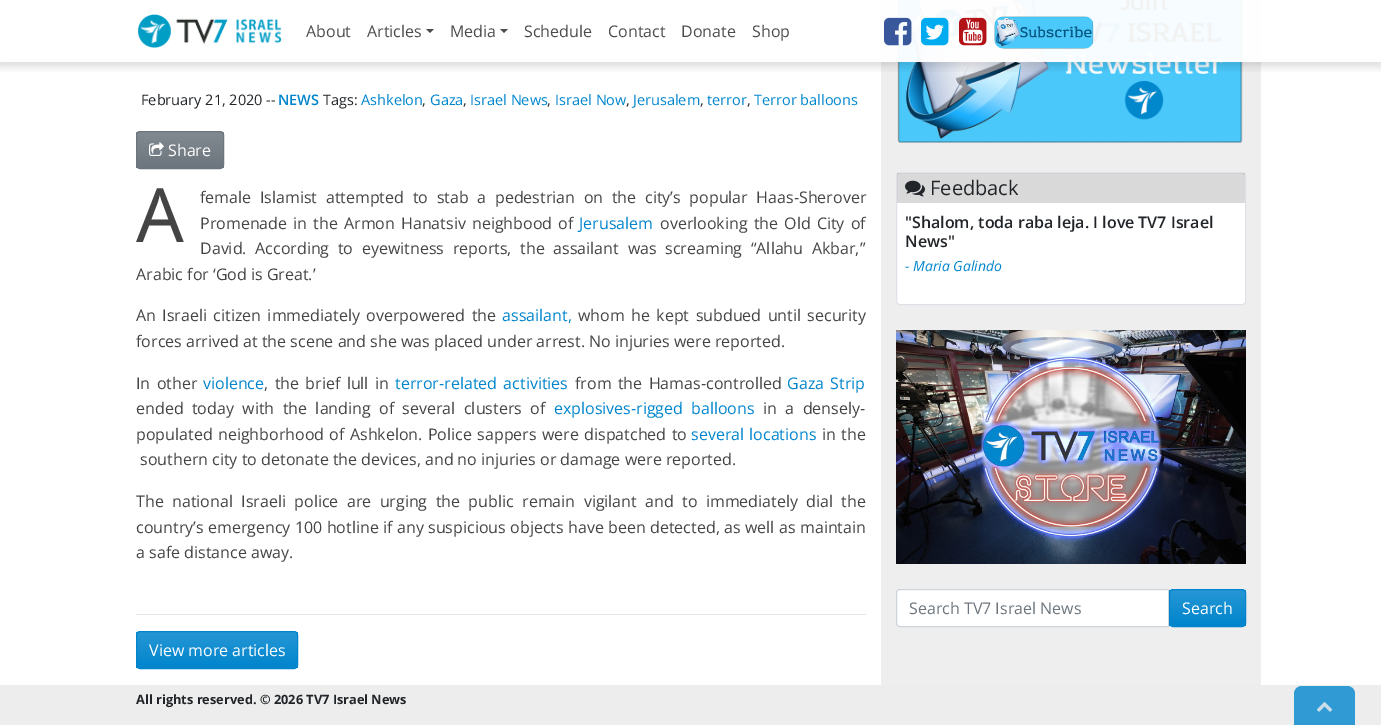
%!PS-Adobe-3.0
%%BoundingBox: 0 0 1381 725
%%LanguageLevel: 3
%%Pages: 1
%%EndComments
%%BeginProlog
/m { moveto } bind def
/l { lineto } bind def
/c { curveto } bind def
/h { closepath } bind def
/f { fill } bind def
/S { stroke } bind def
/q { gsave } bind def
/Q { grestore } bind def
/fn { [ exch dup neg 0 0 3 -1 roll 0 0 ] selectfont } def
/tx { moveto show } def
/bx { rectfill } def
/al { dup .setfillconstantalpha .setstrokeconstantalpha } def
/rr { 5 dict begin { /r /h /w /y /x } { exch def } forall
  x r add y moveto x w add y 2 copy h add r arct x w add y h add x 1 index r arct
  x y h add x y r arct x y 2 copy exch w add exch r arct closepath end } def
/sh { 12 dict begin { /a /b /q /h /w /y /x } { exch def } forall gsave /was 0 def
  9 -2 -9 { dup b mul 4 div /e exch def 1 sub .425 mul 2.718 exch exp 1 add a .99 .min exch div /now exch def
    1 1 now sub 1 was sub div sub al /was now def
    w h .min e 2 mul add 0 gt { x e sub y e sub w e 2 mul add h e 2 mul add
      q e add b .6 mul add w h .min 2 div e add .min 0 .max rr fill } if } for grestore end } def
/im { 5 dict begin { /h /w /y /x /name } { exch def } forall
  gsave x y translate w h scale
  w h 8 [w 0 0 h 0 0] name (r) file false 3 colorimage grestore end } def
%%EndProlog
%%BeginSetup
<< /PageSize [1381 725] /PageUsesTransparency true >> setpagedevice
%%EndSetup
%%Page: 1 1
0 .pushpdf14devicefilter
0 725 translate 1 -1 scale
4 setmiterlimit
1 setgray
0 0 1381 725 bx
0.933 setgray
136 24 730 1 bx
881 0 380 685 bx
(image6.raw) 897 0 346 143 im
q
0 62 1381 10 rectclip
0 setgray
-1 2 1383 64 0 5 0.15 sh
Q
0.95 al
1 setgray
136 0 1125 62 bx
1 al
(image0.raw) 138 14 144 34 im
/OpenSans-Regular 16 fn
0.298 setgray
(About) 306 37 tx
(Articles) 367 37 tx
426 29 m 434 29 l 430 33 l h f
(Media) 450 37 tx
500 29 m 508 29 l 504 33 l h f
(Schedule) 524 37 tx
(Contact) 608 37 tx
(Donate) 681 37 tx
(Shop) 752 37 tx
(image1.raw) 884 17 28 29 im
(image2.raw) 921 17 28 29 im
(image3.raw) 959 17 28 29 im
(image4.raw) 994 16 100 33 im
/OpenSans-Regular 14.5 fn
0.129 0.145 0.161 setrgbcolor
(February 21, 2020 --) 141 105 tx
/OpenSans-SemiBold 14.5 fn
0 0.522 0.804 setrgbcolor
(NEWS) 278 105 tx
/OpenSans-Regular 14.5 fn
0.129 0.145 0.161 setrgbcolor
(Tags:) 323 105 tx
0 0.522 0.804 setrgbcolor
(Ashkelon) 361 105 tx
0.129 0.145 0.161 setrgbcolor
(,) 422 105 tx
0 0.522 0.804 setrgbcolor
(Gaza) 430 105 tx
0.129 0.145 0.161 setrgbcolor
(,) 463 105 tx
0 0.522 0.804 setrgbcolor
(Israel News) 470 105 tx
0.129 0.145 0.161 setrgbcolor
(,) 547 105 tx
0 0.522 0.804 setrgbcolor
(Israel Now) 555 105 tx
0.129 0.145 0.161 setrgbcolor
(,) 626 105 tx
0 0.522 0.804 setrgbcolor
(Jerusalem) 633 105 tx
0.129 0.145 0.161 setrgbcolor
(,) 700 105 tx
0 0.522 0.804 setrgbcolor
(terror) 707 105 tx
0.129 0.145 0.161 setrgbcolor
(,) 747 105 tx
0 0.522 0.804 setrgbcolor
(Terror balloons) 754 105 tx
q
136 131 88 38 4 rr clip newpath
q 136 132 m 224 132 l 224 168 l 136 168 l h clip newpath
<< /ShadingType 2 /ColorSpace /DeviceRGB /Coords [180 132 180 168] /Extend [true true] /Function << /FunctionType 2 /Domain [0 1] /C0 [0.51 0.541 0.569] /C1 [0.424 0.459 0.49] /N 1 >> >> shfill Q
Q
0.424 0.459 0.49 setrgbcolor
136.5 131.5 87 37 3.5 rr S
(image5.raw) 149 142 15 14 im
/OpenSans-Regular 16 fn
1 setgray
(Share) 168 156 tx
/NotoSans-Regular 75 fn
0.267 setgray
(A) 136 242 tx
/OpenSans-Regular 16 fn
200 203 m 4.5 0 32 (female Islamist attempted to stab a pedestrian on the city’s popular Haas-Sherover) widthshow
200 229 m 2 0 32 (Promenade in the Armon Hanatsiv neighbood of) widthshow
0 0.522 0.804 setrgbcolor
(Jerusalem) 579 229 tx
0.267 setgray
660 229 m 2 0 32 (overlooking the Old City of) widthshow
200 254 m 4.5 0 32 (David. According to eyewitness reports, the assailant was screaming “Allahu Akbar,”) widthshow
(Arabic for ‘God is Great.’) 136 280 tx
136 321 m 2.25 0 32 (An Israeli citizen immediately overpowered the) widthshow
0 0.522 0.804 setrgbcolor
(assailant,) 502 321 tx
0.267 setgray
578 321 m 2.25 0 32 (whom he kept subdued until security) widthshow
(forces arrived at the scene and she was placed under arrest. No injuries were reported.) 136 347 tx
136 389 m 2.25 0 32 (In other) widthshow
0 0.522 0.804 setrgbcolor
(violence) 203 389 tx
0.267 setgray
264 389 m 2.25 0 32 (, the brief lull in) widthshow
0 0.522 0.804 setrgbcolor
395 389 m 2.25 0 32 (terror-related activities) widthshow
0.267 setgray
575 389 m 2.25 0 32 (from the Hamas-controlled) widthshow
0 0.522 0.804 setrgbcolor
787 389 m 2.25 0 32 (Gaza Strip) widthshow
0.267 setgray
136 414 m 4.25 0 32 (ended today with the landing of several clusters of) widthshow
0 0.522 0.804 setrgbcolor
554 414 m 4 0 32 (explosives-rigged balloons) widthshow
0.267 setgray
763 414 m 4.25 0 32 (in a densely-) widthshow
136 440 m 1.25 0 32 (populated neighborhood of Ashkelon. Police sappers were dispatched to) widthshow
0 0.522 0.804 setrgbcolor
691 440 m 1 0 32 (several locations) widthshow
0.267 setgray
822 440 m 1 0 32 (in the) widthshow
(southern city to detonate the devices, and no injuries or damage were reported.) 140 465 tx
136 507 m 4.25 0 32 (The national Israeli police are urging the public remain vigilant and to immediately dial the) widthshow
136 533 m 0.25 0 32 (country’s emergency 100 hotline if any suspicious objects have been detected, as well as maintain) widthshow
(a safe distance away.) 136 558 tx
0.902 setgray
136 614 730 1 bx
q
136 631 162 38 4 rr clip newpath
q 136 632 m 298 632 l 298 668 l 136 668 l h clip newpath
<< /ShadingType 2 /ColorSpace /DeviceRGB /Coords [217 632 217 668] /Extend [true true] /Function << /FunctionType 2 /Domain [0 1] /C0 [0.149 0.592 0.835] /C1 [0 0.522 0.804] /N 1 >> >> shfill Q
Q
0 0.522 0.804 setrgbcolor
136.5 631.5 161 37 3.5 rr S
1 setgray
(View more articles) 149 656 tx
896.5 172.5 349 132 3.5 rr q f Q
0.871 0.886 0.902 setrgbcolor
S
0.15 al
0 setgray
897 173 348 30 bx
1 al
(image7.raw) 905 180 20 17 im
/OpenSans-Regular 20 fn
0.129 0.145 0.161 setrgbcolor
(Feedback) 930 195 tx
/OpenSans-SemiBold 16 fn
("Shalom, toda raba leja. I love TV7 Israel) 905 228 tx
(News") 905 247 tx
/OpenSans-Italic 14 fn
0 0.522 0.804 setrgbcolor
(- Maria Galindo) 905 271 tx
(image8.raw) 896 330 350 234 im
1 setgray
900 589.5 m 1168.5 589.5 l 1168.5 626.5 l 900 626.5 l 898 626.5 896.5 625 896.5 623 c 896.5 593 l 896.5 591 898 589.5 900 589.5 c h q f Q
0.808 0.831 0.855 setrgbcolor
S
/OpenSans-Regular 16 fn
0.424 0.459 0.49 setrgbcolor
(Search TV7 Israel News) 909 614 tx
q
1169 589 77 38 4 rr clip newpath
q 1169 590 m 1246 590 l 1246 626 l 1169 626 l h clip newpath
<< /ShadingType 2 /ColorSpace /DeviceRGB /Coords [1208 590 1208 626] /Extend [true true] /Function << /FunctionType 2 /Domain [0 1] /C0 [0.149 0.592 0.835] /C1 [0 0.522 0.804] /N 1 >> >> shfill Q
Q
0 0.522 0.804 setrgbcolor
1169.5 589.5 76 37 3.5 rr S
1 setgray
(Search) 1182 614 tx
0.929 setgray
0 685 1381 40 bx
/OpenSans-Bold 12.8 fn
0.129 0.145 0.161 setrgbcolor
(All rights reserved. © 2026 TV7 Israel News) 136 704 tx
0.184 0.604 0.827 setrgbcolor
1302 686 m 1347 686 l 1351.5 686 1355 689.5 1355 694 c 1355 725 l 1294 725 l 1294 694 l 1294 689.5 1297.5 686 1302 686 c h f
(image9.raw) 1316 702 17 10 im
.poppdf14devicefilter showpage
%%EOF
